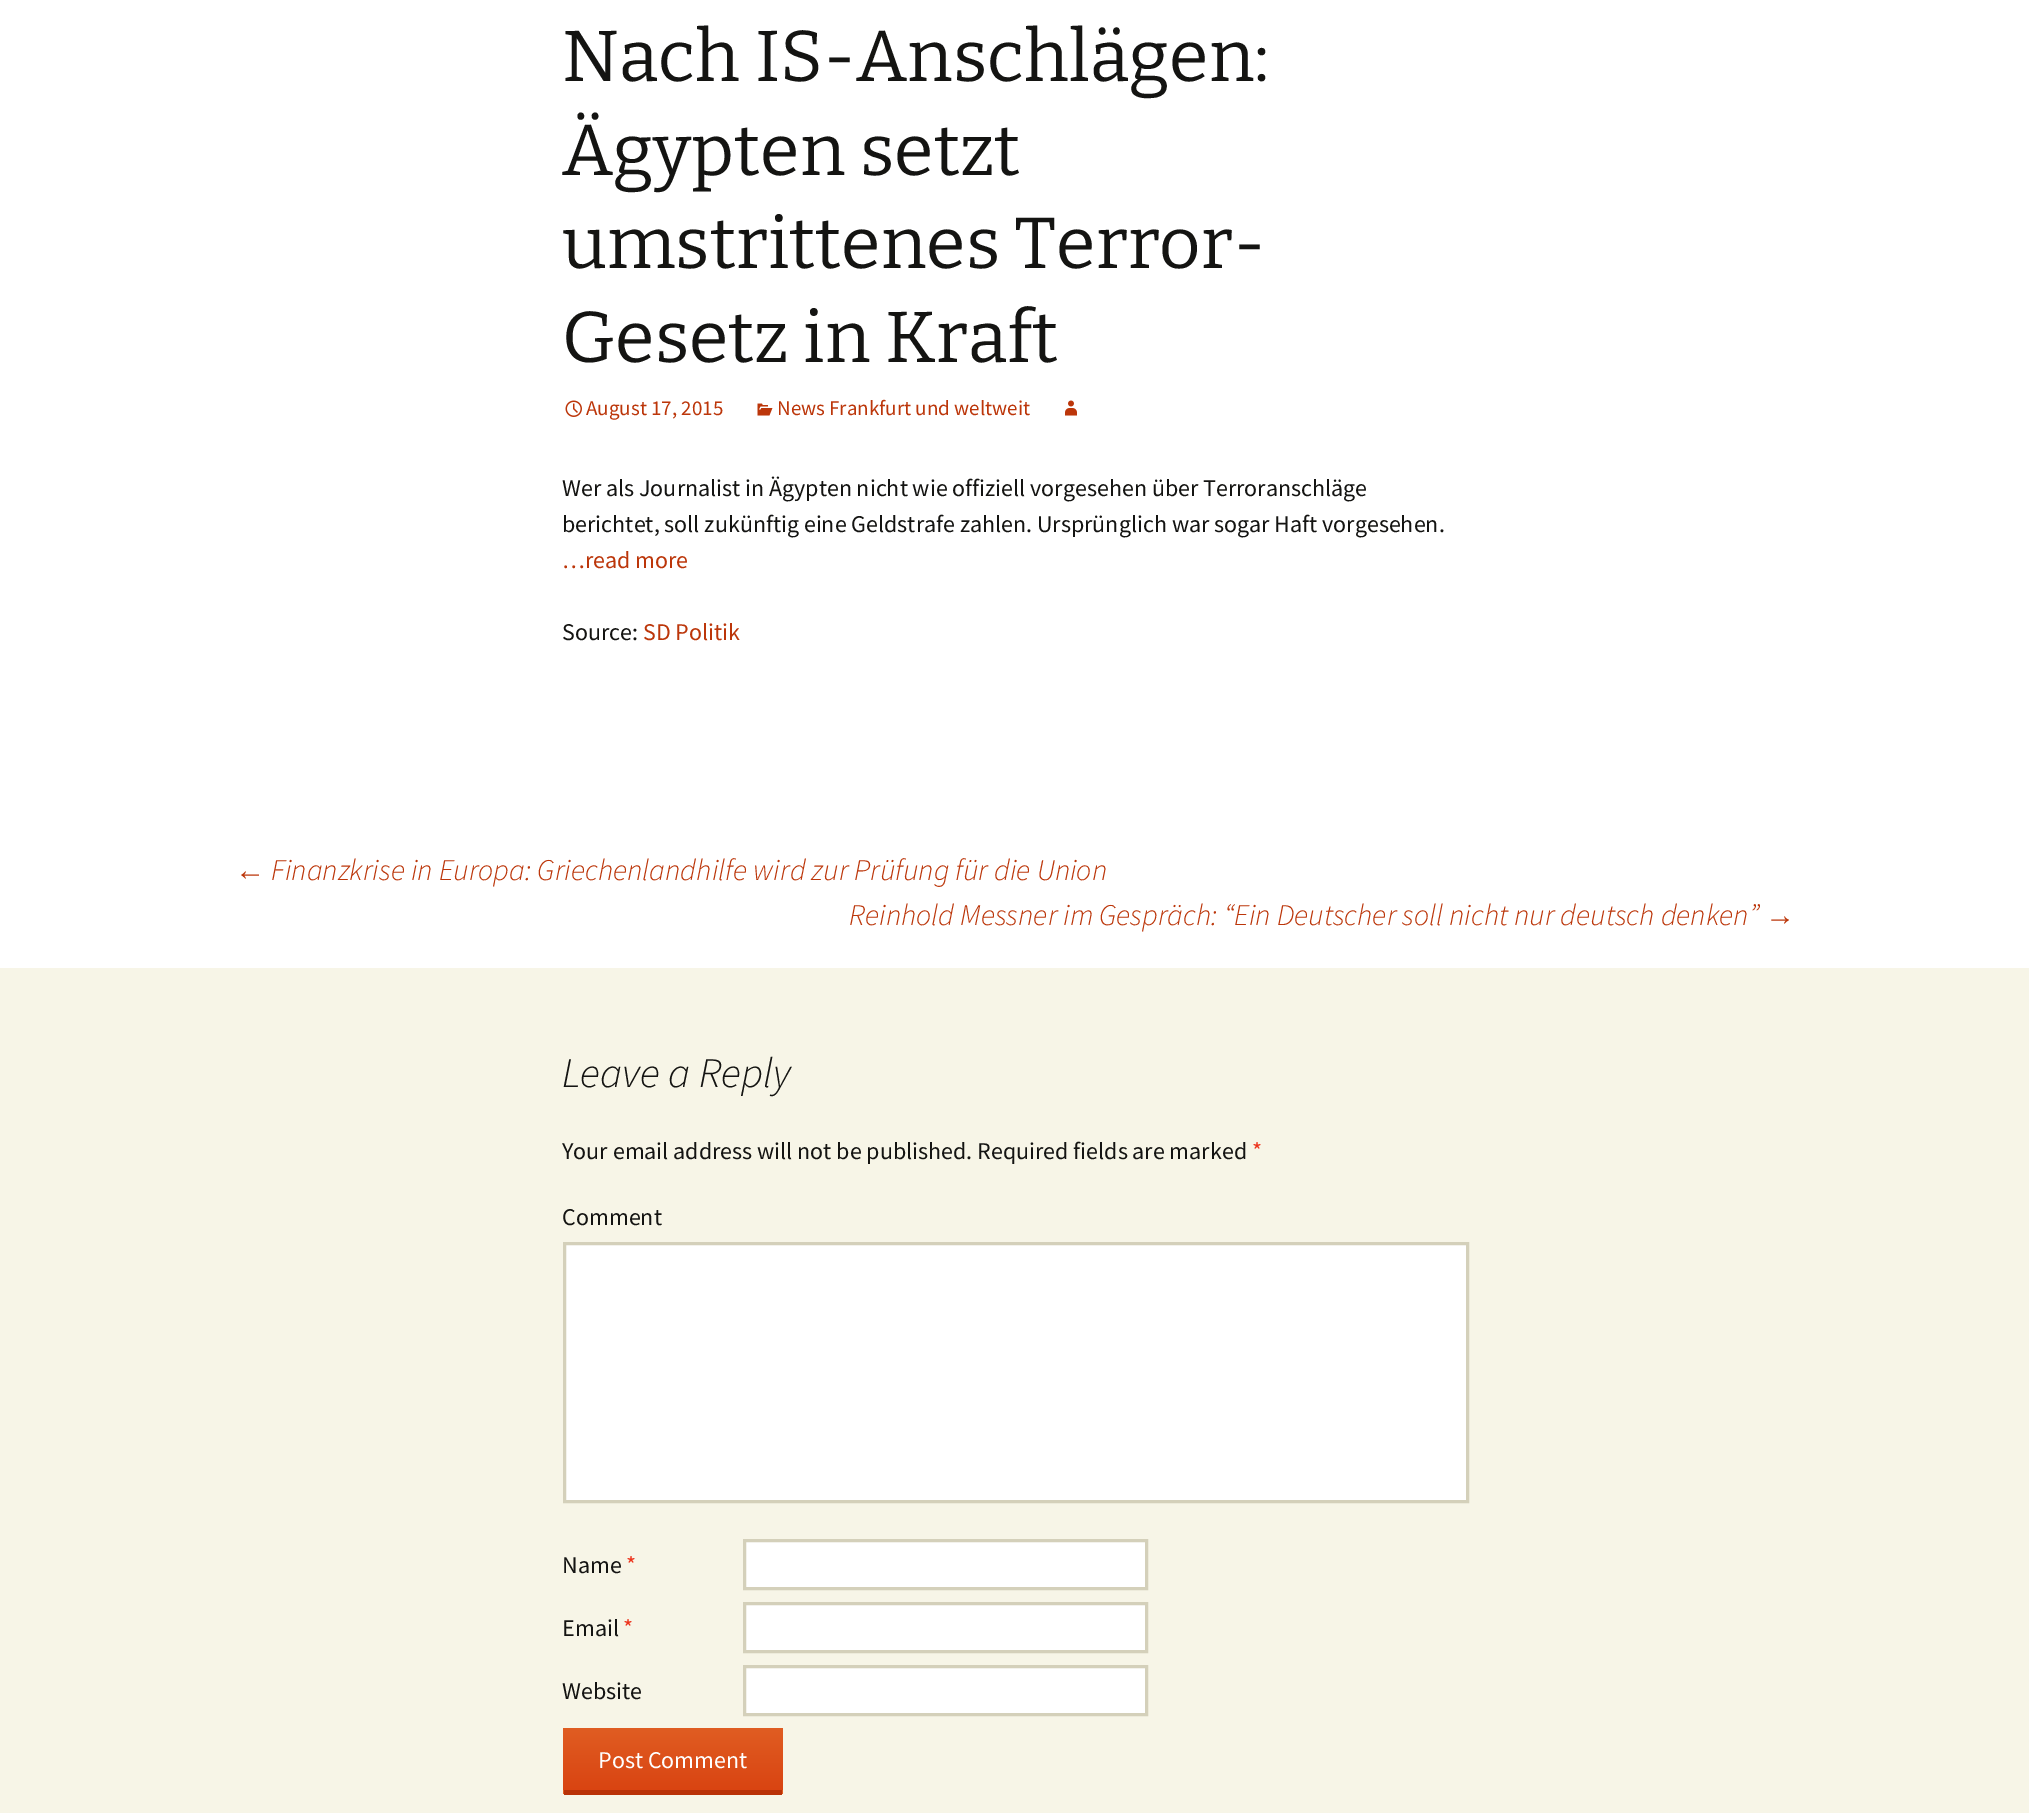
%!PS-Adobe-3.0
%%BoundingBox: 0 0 2029 1813
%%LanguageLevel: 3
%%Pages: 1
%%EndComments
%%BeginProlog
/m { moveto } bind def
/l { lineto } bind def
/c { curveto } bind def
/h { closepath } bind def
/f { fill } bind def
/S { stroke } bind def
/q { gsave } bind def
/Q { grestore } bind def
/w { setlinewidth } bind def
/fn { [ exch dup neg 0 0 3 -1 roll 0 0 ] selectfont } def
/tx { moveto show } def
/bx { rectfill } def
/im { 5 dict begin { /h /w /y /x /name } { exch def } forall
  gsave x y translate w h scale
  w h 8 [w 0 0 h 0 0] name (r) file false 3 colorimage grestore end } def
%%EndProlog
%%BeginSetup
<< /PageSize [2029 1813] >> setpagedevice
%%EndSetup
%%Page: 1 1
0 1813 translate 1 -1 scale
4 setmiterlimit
1 setgray
0 0 2029 1813 bx
/Bitter-Regular 72 fn
0.078 0.078 0.071 setrgbcolor
(Nach IS-Anschlägen:) 562 81 tx
(Ägypten setzt) 562 175 tx
(umstrittenes Terror-) 562 268 tx
(Gesetz in Kraft) 562 362 tx
(image0.raw) 565 400 17 17 im
/SourceSansPro-Regular 21 fn
0.737 0.212 0.039 setrgbcolor
(August 17, 2015) 586 415 tx
(image1.raw) 757 403 16 13 im
(News Frankfurt und weltweit) 777 415 tx
(image2.raw) 1065 400 12 16 im
/SourceSansPro-Regular 24 fn
0.078 0.078 0.071 setrgbcolor
(Wer als Journalist in Ägypten nicht wie offiziell vorgesehen über Terroranschläge) 562 496 tx
(berichtet, soll zukünftig eine Geldstrafe zahlen. Ursprünglich war sogar Haft vorgesehen.) 562 532 tx
0.737 0.212 0.039 setrgbcolor
(…read more) 562 568 tx
0.078 0.078 0.071 setrgbcolor
(Source:) 562 640 tx
0.737 0.212 0.039 setrgbcolor
(SD Politik) 643 640 tx
/LiberationSans-Italic 30 fn
(←) 235 880 tx
/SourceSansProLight-LightItalic 30 fn
(Finanzkrise in Europa: Griechenlandhilfe wird zur Prüfung für die Union) 271 880 tx
(Reinhold Messner im Gespräch: “Ein Deutscher soll nicht nur deutsch denken”) 849 925 tx
/LiberationSans-Italic 30 fn
(→) 1765 925 tx
0.969 0.961 0.906 setrgbcolor
0 968 2029 845 bx
/SourceSansProLight-LightItalic 42 fn
0.078 0.078 0.071 setrgbcolor
(Leave a Reply) 562 1087 tx
/SourceSansPro-Regular 24 fn
(Your email address will not be published. Required fields are marked) 562 1159 tx
0.929 0.2 0.11 setrgbcolor
(*) 1252 1159 tx
0.078 0.078 0.071 setrgbcolor
(Comment) 562 1225 tx
1 setgray
564.5 1243.5 m 1467.5 1243.5 l 1467.5 1501.5 l 564.5 1501.5 l h q f Q
0.831 0.816 0.729 setrgbcolor
3 w
S
0.078 0.078 0.071 setrgbcolor
(Name) 562 1573 tx
0.929 0.2 0.11 setrgbcolor
(*) 626 1573 tx
1 setgray
744.5 1540.5 m 1146.5 1540.5 l 1146.5 1588.5 l 744.5 1588.5 l h q f Q
0.831 0.816 0.729 setrgbcolor
S
0.078 0.078 0.071 setrgbcolor
(Email) 562 1636 tx
0.929 0.2 0.11 setrgbcolor
(*) 623 1636 tx
1 setgray
744.5 1603.5 m 1146.5 1603.5 l 1146.5 1651.5 l 744.5 1651.5 l h q f Q
0.831 0.816 0.729 setrgbcolor
S
0.078 0.078 0.071 setrgbcolor
(Website) 562 1699 tx
1 setgray
744.5 1666.5 m 1146.5 1666.5 l 1146.5 1714.5 l 744.5 1714.5 l h q f Q
0.831 0.816 0.729 setrgbcolor
S
q 566 1728 m 780 1728 l 781.5 1728 783 1729.5 783 1731 c 783 1790 l 563 1790 l 563 1731 l 563 1729.5 564.5 1728 566 1728 c h clip newpath
<< /ShadingType 2 /ColorSpace /DeviceRGB /Coords [673 1728 673 1790] /Extend [true true] /Function << /FunctionType 2 /Domain [0 1] /C0 [0.878 0.365 0.133] /C1 [0.851 0.267 0.071] /N 1 >> >> shfill Q
q 563 1790 m 783 1790 l 783 1791 l 783 1792.5 781.5 1794 780 1794 c 566 1794 l 564.5 1794 563 1792.5 563 1791 c h clip newpath
<< /ShadingType 2 /ColorSpace /DeviceRGB /Coords [673 1790 673 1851] /Extend [true true] /Function << /FunctionType 2 /Domain [0 1] /C0 [0.878 0.365 0.133] /C1 [0.851 0.267 0.071] /N 1 >> >> shfill Q
0.725 0.196 0.027 setrgbcolor
564 1790 218 5 bx
1 setgray
(Post Comment) 598 1768 tx
showpage
%%EOF
